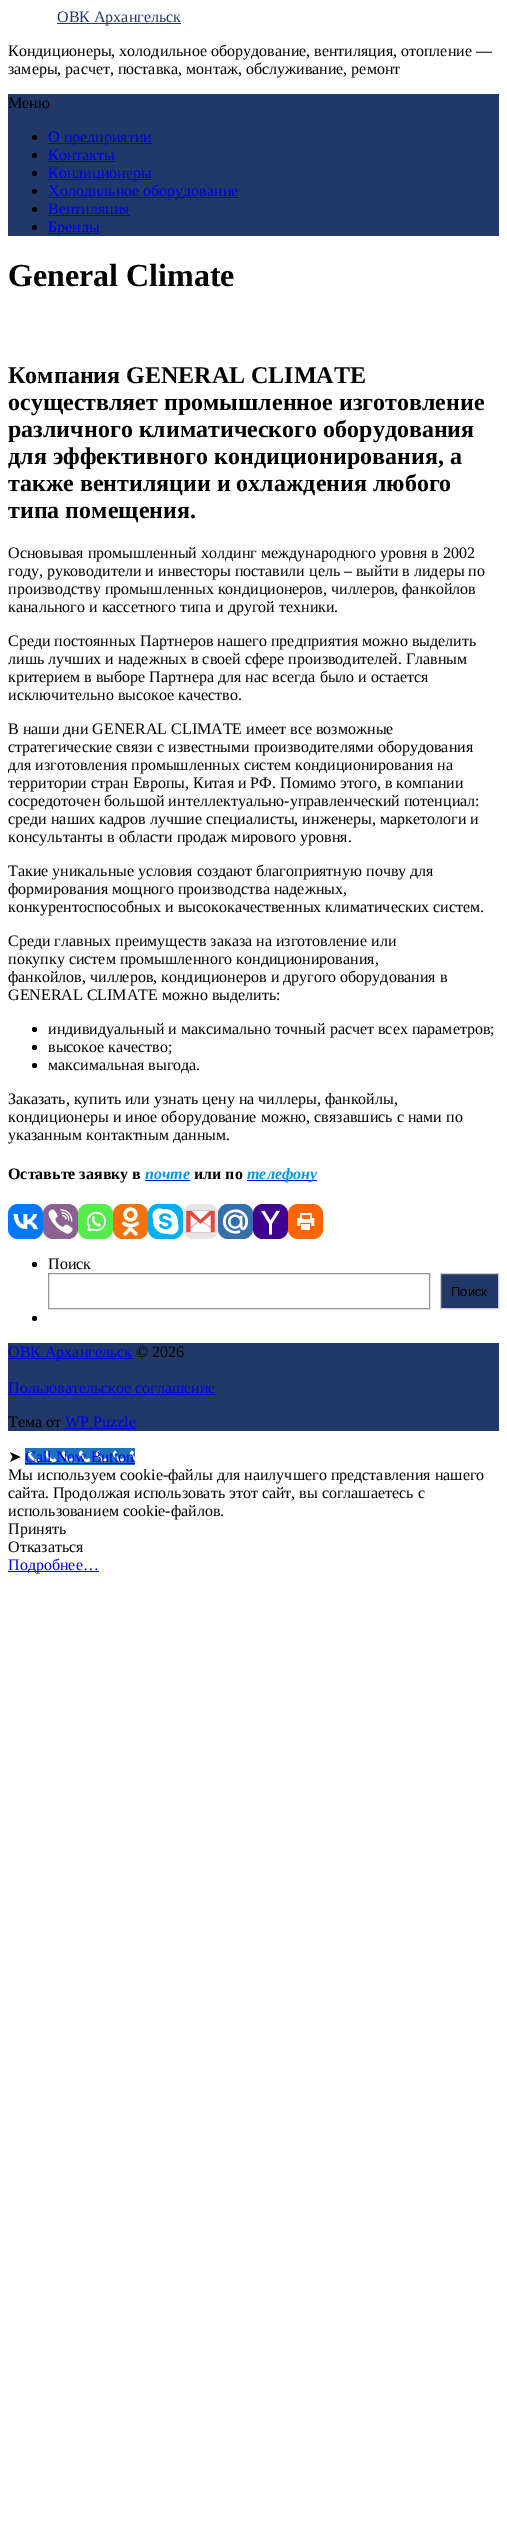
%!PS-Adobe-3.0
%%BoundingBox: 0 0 507 2539
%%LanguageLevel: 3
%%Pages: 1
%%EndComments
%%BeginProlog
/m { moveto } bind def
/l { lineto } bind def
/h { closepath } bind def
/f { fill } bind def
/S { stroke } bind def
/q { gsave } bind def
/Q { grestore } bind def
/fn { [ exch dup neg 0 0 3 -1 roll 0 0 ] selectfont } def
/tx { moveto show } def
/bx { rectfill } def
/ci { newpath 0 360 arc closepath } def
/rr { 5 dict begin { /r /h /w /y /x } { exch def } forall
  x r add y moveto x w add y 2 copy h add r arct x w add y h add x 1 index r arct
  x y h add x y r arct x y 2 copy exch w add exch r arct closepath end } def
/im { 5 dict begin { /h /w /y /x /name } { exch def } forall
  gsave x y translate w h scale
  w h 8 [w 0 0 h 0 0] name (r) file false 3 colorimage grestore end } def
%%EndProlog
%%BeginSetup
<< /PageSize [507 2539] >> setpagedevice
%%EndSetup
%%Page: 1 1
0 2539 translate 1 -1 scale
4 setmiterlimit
1 setgray
0 0 507 2539 bx
0.133 0.22 0.408 setrgbcolor
57 23 124 1 bx
/LiberationSerif-Regular 16 fn
(ОВК Архангельск) 57 22 tx
0 setgray
(Кондиционеры, холодильное оборудование, вентиляция, отопление —) 8 56 tx
(замеры, расчет, поставка, монтаж, обслуживание, ремонт) 8 74 tx
0.133 0.22 0.408 setrgbcolor
8 94 491 142 bx
0 setgray
(Меню) 8 108 tx
34.5 137.5 2.5 ci f
0 0 0.933 setrgbcolor
48 143 104 1 bx
(О предприятии) 48 142 tx
0 setgray
34.5 155.5 2.5 ci f
0 0 0.933 setrgbcolor
(Контакты) 48 160 tx
48 161 67 1 bx
0 setgray
34.5 173.5 2.5 ci f
0 0 0.933 setrgbcolor
48 179 103 1 bx
(Кондиционеры) 48 178 tx
0 setgray
34.5 191.5 2.5 ci f
0 0 0.933 setrgbcolor
48 197 190 1 bx
(Холодильное оборудование) 48 196 tx
0 setgray
34.5 209.5 2.5 ci f
0 0 0.933 setrgbcolor
48 215 82 1 bx
(Вентиляция) 48 214 tx
0 setgray
34.5 227.5 2.5 ci f
0 0 0.933 setrgbcolor
48 233 52 1 bx
(Бренды) 48 232 tx
/LiberationSerif-Bold 32 fn
0 setgray
(General Climate) 8 286 tx
/LiberationSerif-Bold 24 fn
(Компания GENERAL CLIMATE) 8 383 tx
(осуществляет промышленное изготовление) 8 410 tx
(различного климатического оборудования) 8 437 tx
(для эффективного кондиционирования, а) 8 464 tx
(также вентиляции и охлаждения любого) 8 491 tx
(типа помещения.) 8 518 tx
/LiberationSerif-Regular 16 fn
(Основывая промышленный холдинг международного уровня в 2002) 8 558 tx
(году, руководители и инвесторы поставили цель – выйти в лидеры по) 8 576 tx
(производству промышленных кондиционеров, чиллеров, фанкойлов) 8 594 tx
(канального и кассетного типа и другой техники.) 8 612 tx
(Среди постоянных Партнеров нашего предприятия можно выделить) 8 646 tx
(лишь лучших и надежных в своей сфере производителей. Главным) 8 664 tx
(критерием в выборе Партнера для нас всегда было и остается) 8 682 tx
(исключительно высокое качество.) 8 700 tx
(В наши дни GENERAL CLIMATE имеет все возможные) 8 734 tx
(стратегические связи с известными производителями оборудования) 8 752 tx
(для изготовления промышленных систем кондиционирования на) 8 770 tx
(территории стран Европы, Китая и РФ. Помимо этого, в компании) 8 788 tx
(сосредоточен большой интеллектуально-управленческий потенциал:) 8 806 tx
(среди наших кадров лучшие специалисты, инженеры, маркетологи и) 8 824 tx
(консультанты в области продаж мирового уровня.) 8 842 tx
(Такие уникальные условия создают благоприятную почву для) 8 876 tx
(формирования мощного производства надежных,) 8 894 tx
(конкурентоспособных и высококачественных климатических систем.) 8 912 tx
(Среди главных преимуществ заказа на изготовление или) 8 946 tx
(покупку систем промышленного кондиционирования,) 8 964 tx
(фанкойлов, чиллеров, кондиционеров и другого оборудования в) 8 982 tx
(GENERAL CLIMATE можно выделить:) 8 1000 tx
34.5 1029.5 2.5 ci f
(индивидуальный и максимально точный расчет всех параметров;) 48 1034 tx
34.5 1047.5 2.5 ci f
(высокое качество;) 48 1052 tx
34.5 1065.5 2.5 ci f
(максимальная выгода.) 48 1070 tx
(Заказать, купить или узнать цену на чиллеры, фанкойлы,) 8 1104 tx
(кондиционеры и иное оборудование можно, связавшись с нами по) 8 1122 tx
(указанным контактным данным.) 8 1140 tx
/LiberationSerif-Bold 16 fn
(Оставьте заявку в) 8 1179 tx
/LiberationSerif-BoldItalic 16 fn
0.024 0.576 0.89 setrgbcolor
(почте) 145 1179 tx
0 0 0.933 setrgbcolor
145 1180 45 1 bx
/LiberationSerif-Bold 16 fn
0 setgray
(или по) 194 1179 tx
0 0 0.933 setrgbcolor
247 1180 70 1 bx
/LiberationSerif-BoldItalic 16 fn
0.024 0.576 0.89 setrgbcolor
(телефону) 247 1179 tx
0 0.467 1 setrgbcolor
8 1204 35 35 10 rr f
(image0.raw) 13 1214 25 16 im
0.545 0.384 0.561 setrgbcolor
43 1204 35 35 10 rr f
(image1.raw) 48 1209 25 25 im
0.333 0.922 0.298 setrgbcolor
78 1204 35 35 10 rr f
(image2.raw) 86 1211 20 21 im
0.949 0.447 0.047 setrgbcolor
113 1204 35 35 10 rr f
(image3.raw) 122 1207 17 29 im
0 0.686 0.941 setrgbcolor
148 1204 35 35 10 rr f
(image4.raw) 152 1208 27 27 im
0.898 setgray
183 1204 35 35 10 rr f
(image5.raw) 186 1210 29 23 im
0.208 0.435 0.675 setrgbcolor
218 1204 35 35 10 rr f
(image6.raw) 222 1209 27 25 im
0.251 0 0.565 setrgbcolor
253 1204 35 35 10 rr f
(image7.raw) 261 1210 19 25 im
0.992 0.396 0 setrgbcolor
288 1204 35 35 10 rr f
(image8.raw) 297 1213 18 17 im
0 setgray
34.5 1264.5 2.5 ci f
/LiberationSerif-Regular 16 fn
(Поиск) 48 1269 tx
0.58 setgray
48.5 1273.5 381 35 rectstroke
0.133 0.22 0.408 setrgbcolor
440.5 1273.5 m 498.5 1273.5 l 498.5 1308.5 l 440.5 1308.5 l h q f Q
0.8 setgray
S
/LiberationSans-Regular 13 fn
0 setgray
(Поиск) 451 1296 tx
34.5 1318.5 2.5 ci f
0.133 0.22 0.408 setrgbcolor
8 1343 491 88 bx
0 0 0.933 setrgbcolor
8 1358 124 1 bx
/LiberationSerif-Regular 16 fn
(ОВК Архангельск) 8 1357 tx
0 setgray
(© 2026) 136 1357 tx
0 0 0.933 setrgbcolor
(Пользовательское соглашение) 8 1393 tx
8 1394 208 1 bx
0 setgray
(Тема от) 8 1427 tx
0 0 0.933 setrgbcolor
(WP Puzzle) 65 1427 tx
65 1428 71 1 bx
0.118 0.451 0.745 setrgbcolor
25 1448 110 17 bx
(image9.raw) 27 1450 108 13 im
0 0 0.933 setrgbcolor
(Call Now Button) 25 1462 tx
25 1463 110 1 bx
/DejaVuSans-Regular 16 fn
0 setgray
(➤) 8 1462 tx
/LiberationSerif-Regular 16 fn
(Мы используем cookie-файлы для наилучшего представления нашего) 8 1480 tx
(сайта. Продолжая использовать этот сайт, вы соглашаетесь с) 8 1498 tx
(использованием cookie-файлов.) 8 1516 tx
(Принять) 8 1534 tx
(Отказаться) 8 1552 tx
0 0 0.933 setrgbcolor
8 1571 91 1 bx
(Подробнее…) 8 1570 tx
showpage
%%EOF
